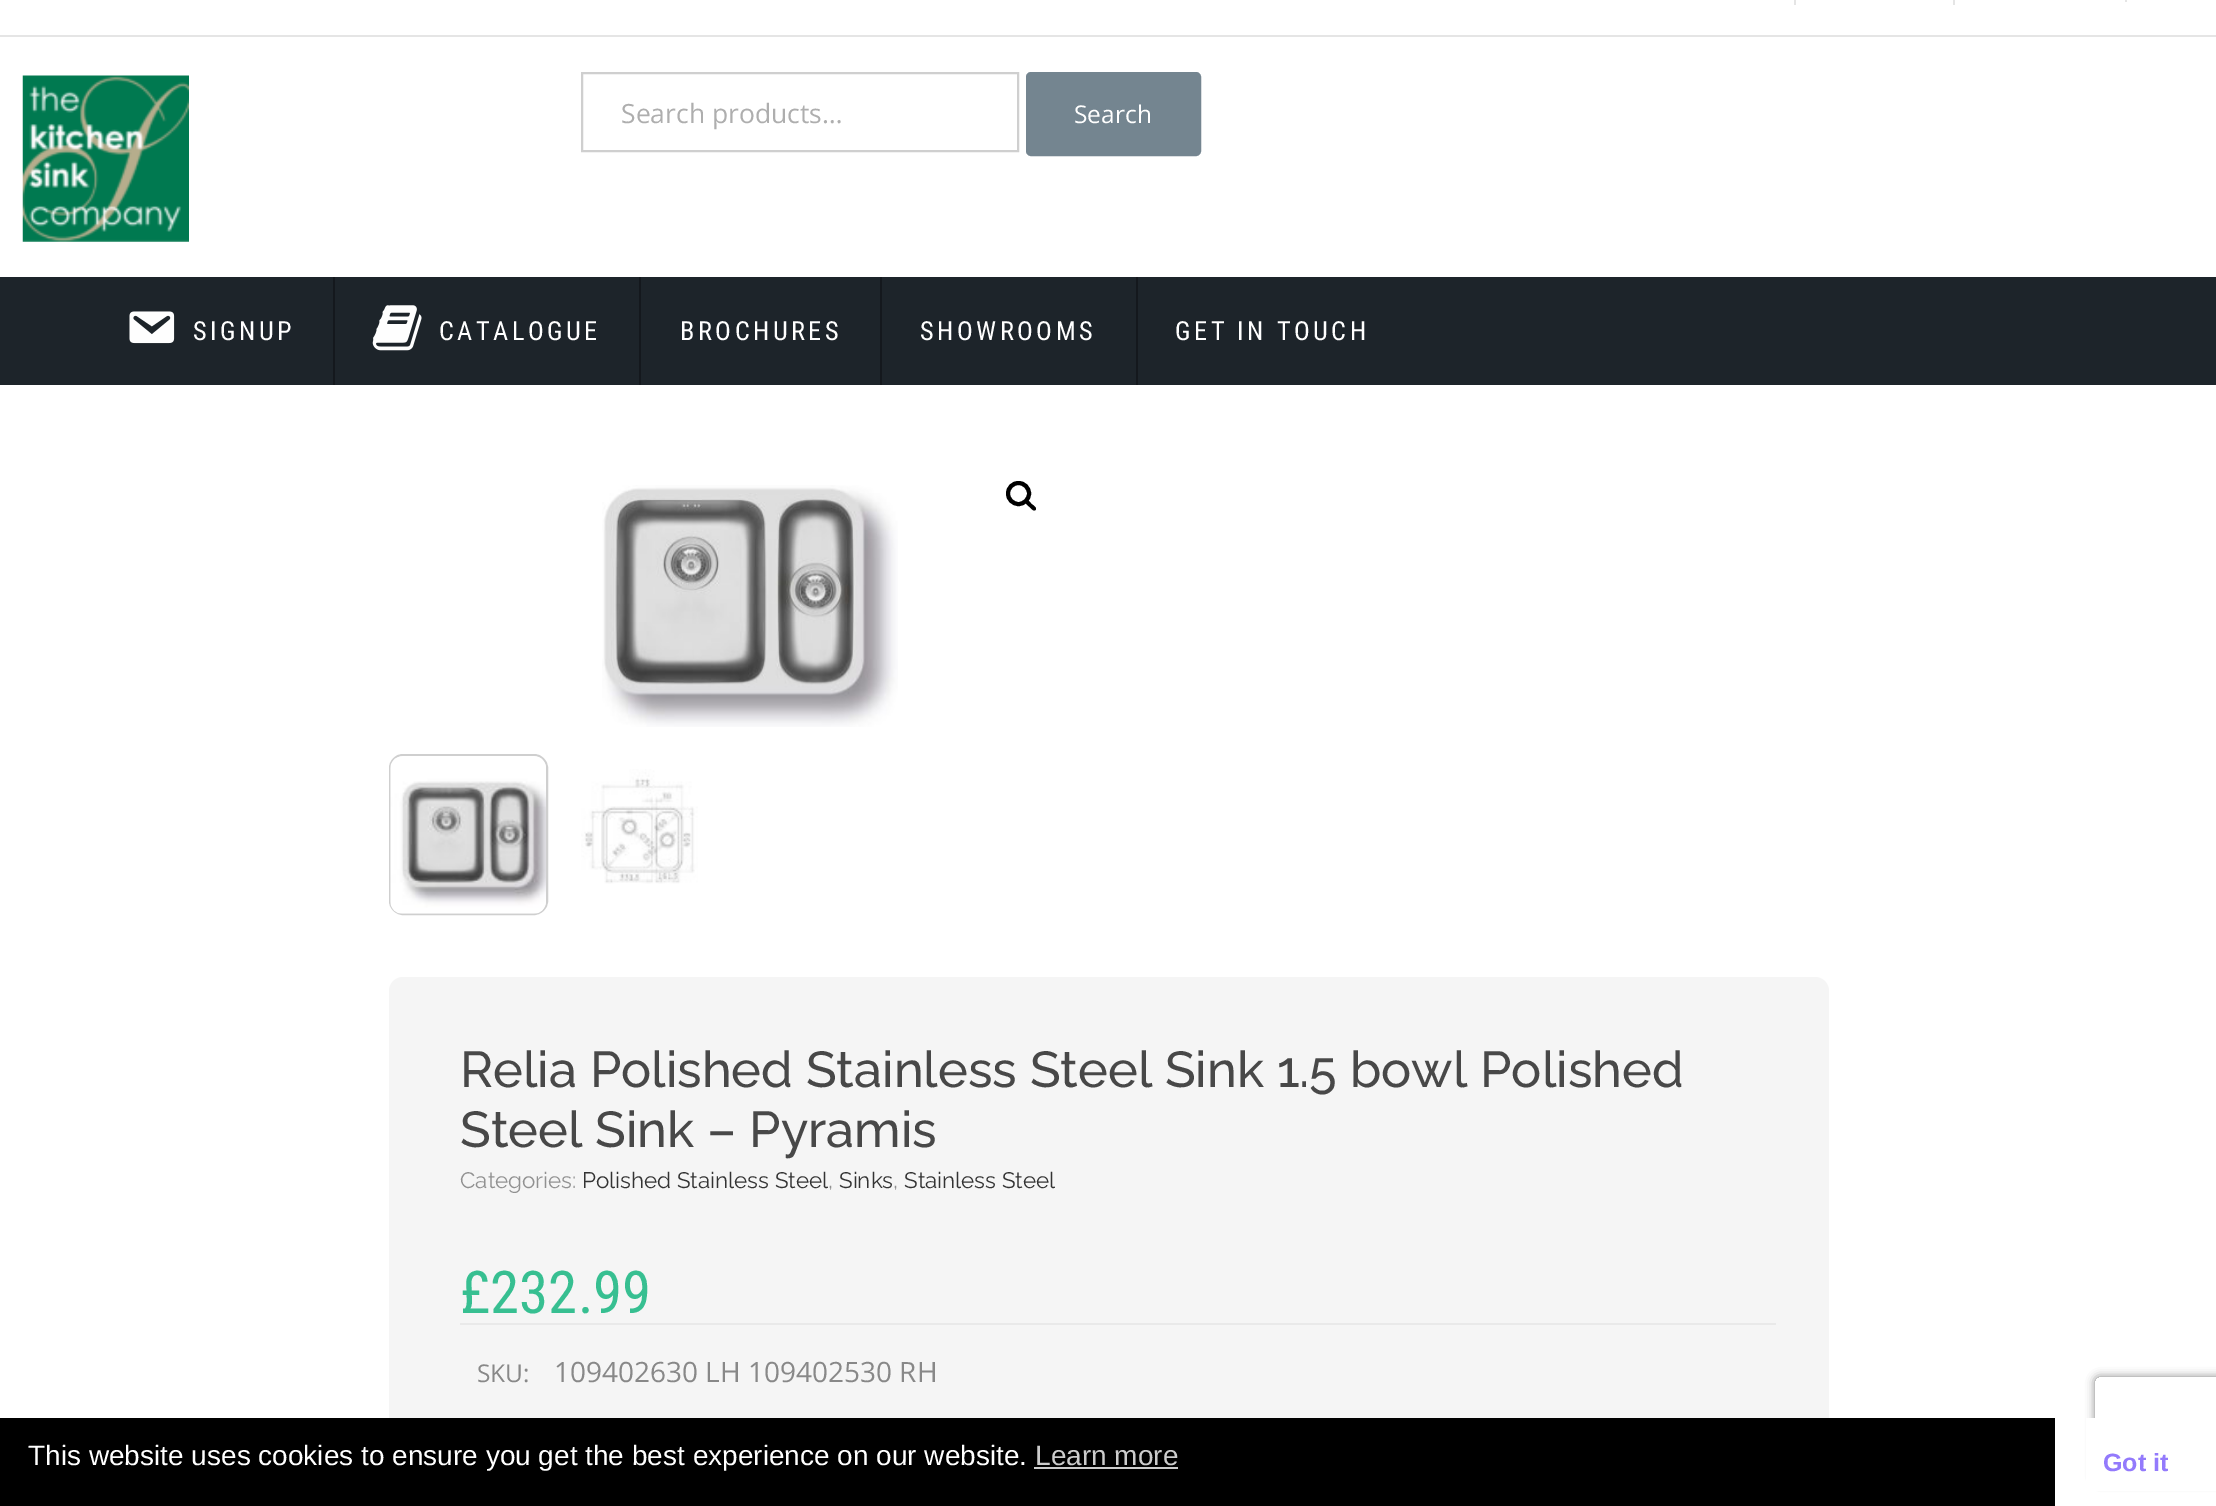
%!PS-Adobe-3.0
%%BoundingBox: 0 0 2216 1506
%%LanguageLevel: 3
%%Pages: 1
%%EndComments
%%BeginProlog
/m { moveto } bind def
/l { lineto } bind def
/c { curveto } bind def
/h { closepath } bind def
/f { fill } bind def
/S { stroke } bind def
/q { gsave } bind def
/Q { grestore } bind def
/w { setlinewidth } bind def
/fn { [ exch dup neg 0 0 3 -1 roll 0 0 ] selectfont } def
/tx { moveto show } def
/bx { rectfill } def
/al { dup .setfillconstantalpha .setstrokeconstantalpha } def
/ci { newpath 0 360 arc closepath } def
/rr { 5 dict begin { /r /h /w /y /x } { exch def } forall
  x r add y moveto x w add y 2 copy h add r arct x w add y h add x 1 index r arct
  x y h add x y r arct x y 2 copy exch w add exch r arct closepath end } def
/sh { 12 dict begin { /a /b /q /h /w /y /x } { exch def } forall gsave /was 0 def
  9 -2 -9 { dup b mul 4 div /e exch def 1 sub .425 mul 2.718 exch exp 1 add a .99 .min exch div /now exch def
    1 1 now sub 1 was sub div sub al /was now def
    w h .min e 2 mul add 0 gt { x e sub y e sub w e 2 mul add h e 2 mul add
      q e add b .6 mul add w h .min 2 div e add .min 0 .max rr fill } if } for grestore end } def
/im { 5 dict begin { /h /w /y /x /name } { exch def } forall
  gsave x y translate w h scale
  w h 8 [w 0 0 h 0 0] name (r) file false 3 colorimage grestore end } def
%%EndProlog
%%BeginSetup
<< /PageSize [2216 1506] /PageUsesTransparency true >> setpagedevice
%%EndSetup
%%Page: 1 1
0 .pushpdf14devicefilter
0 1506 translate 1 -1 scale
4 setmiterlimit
1 setgray
0 0 2216 1506 bx
0.898 setgray
0 35 2216 2 bx
1794 0 2 5 bx
1953 0 2 5 bx
2125 0 2 2 bx
(image0.raw) 22 75 167 167 im
0.812 setgray
2 w
582 73 436 78 rectstroke
/OpenSans-Regular 26.5 fn
0.682 setgray
(Search products…) 621 123 tx
0.455 0.522 0.565 setrgbcolor
1027 73 173 82 4 rr q f Q
S
/OpenSans-Regular 24.5 fn
1 setgray
(Search) 1074 123 tx
0.114 0.141 0.165 setrgbcolor
0 277 2216 108 bx
0.078 0.094 0.114 setrgbcolor
333 277 2 108 bx
(image1.raw) 129 311 46 33 im
/RobotoCondensed-Regular 26.25 fn
1 setgray
193 340 m 3.5 0 (SIGNUP) ashow
0.078 0.094 0.114 setrgbcolor
639 277 2 108 bx
(image2.raw) 372 305 50 46 im
1 setgray
439 340 m 3.5 0 (CATALOGUE) ashow
0.078 0.094 0.114 setrgbcolor
880 277 2 108 bx
1 setgray
680 340 m 3.5 0 (BROCHURES) ashow
0.078 0.094 0.114 setrgbcolor
1136 277 2 108 bx
1 setgray
920 340 m 3.5 0 (SHOWROOMS) ashow
1175 340 m 3.5 0 (GET IN TOUCH) ashow
(image3.raw) 602 485 296 242 im
0 setgray
4 w
1018.5 493.5 10.5 ci S
1025.5 500 m 1027.5 498 1030.5 503 1031.5 504 c 1033 505 1037.5 508 1035.5 510 c 1033.5 512 1030.5 507.5 1029 506.5 c 1028 505.5 1023.5 502 1025.5 500 c h f
0.812 setgray
2 w
390 755 157 159 13 rr S
(image4.raw) 390 756 156 158 im
(image5.raw) 581 769 117 115 im
0.961 setgray
389 977 1440 511 14 rr f
/Raleway-Medium 50.4 fn
0.282 setgray
(Relia Polished Stainless Steel Sink 1.5 bowl Polished) 460 1087 tx
(Steel Sink – Pyramis) 460 1147 tx
/Raleway-Regular 22.4 fn
0.569 setgray
(Categories:) 460 1188 tx
0.2 setgray
(Polished Stainless Steel) 582 1188 tx
0.569 setgray
(,) 828 1188 tx
0.2 setgray
(Sinks) 839 1188 tx
0.569 setgray
(,) 893 1188 tx
0.2 setgray
(Stainless Steel) 904 1188 tx
/RobotoCondensed-Regular 59 fn
0.216 0.749 0.569 setrgbcolor
(£232.99) 460 1313 tx
0.914 setgray
460 1323 1316 2 bx
/OpenSans-Regular 24.5 fn
0.533 setgray
(SKU:) 477 1382 tx
/OpenSans-Regular 28 fn
(109402630 LH 109402530 RH) 554 1382 tx
q
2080 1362 m 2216 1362 l 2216 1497 l 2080 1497 l h 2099 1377 m 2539 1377 l 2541 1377 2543 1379 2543 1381 c 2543 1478 l 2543 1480 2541 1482 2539 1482 c 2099 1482 l 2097 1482 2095 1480 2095 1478 c 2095 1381 l 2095 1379 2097 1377 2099 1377 c h eoclip newpath
0.502 setgray
2095 1377 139 105 4 4.5 1 sh
Q
0 setgray
0 1418 2055 88 bx
/LiberationSans-Regular 28 fn
1 setgray
(This website uses cookies to ensure you get the best experience on our website.) 28 1465 tx
0.8 setgray
(Learn more) 1035 1465 tx
1034 1467 144 2 bx
1 setgray
2086 1418 130 73 bx
/LiberationSans-Bold 25 fn
0.576 0.478 0.988 setrgbcolor
(Got it) 2103 1471 tx
.poppdf14devicefilter showpage
%%EOF
